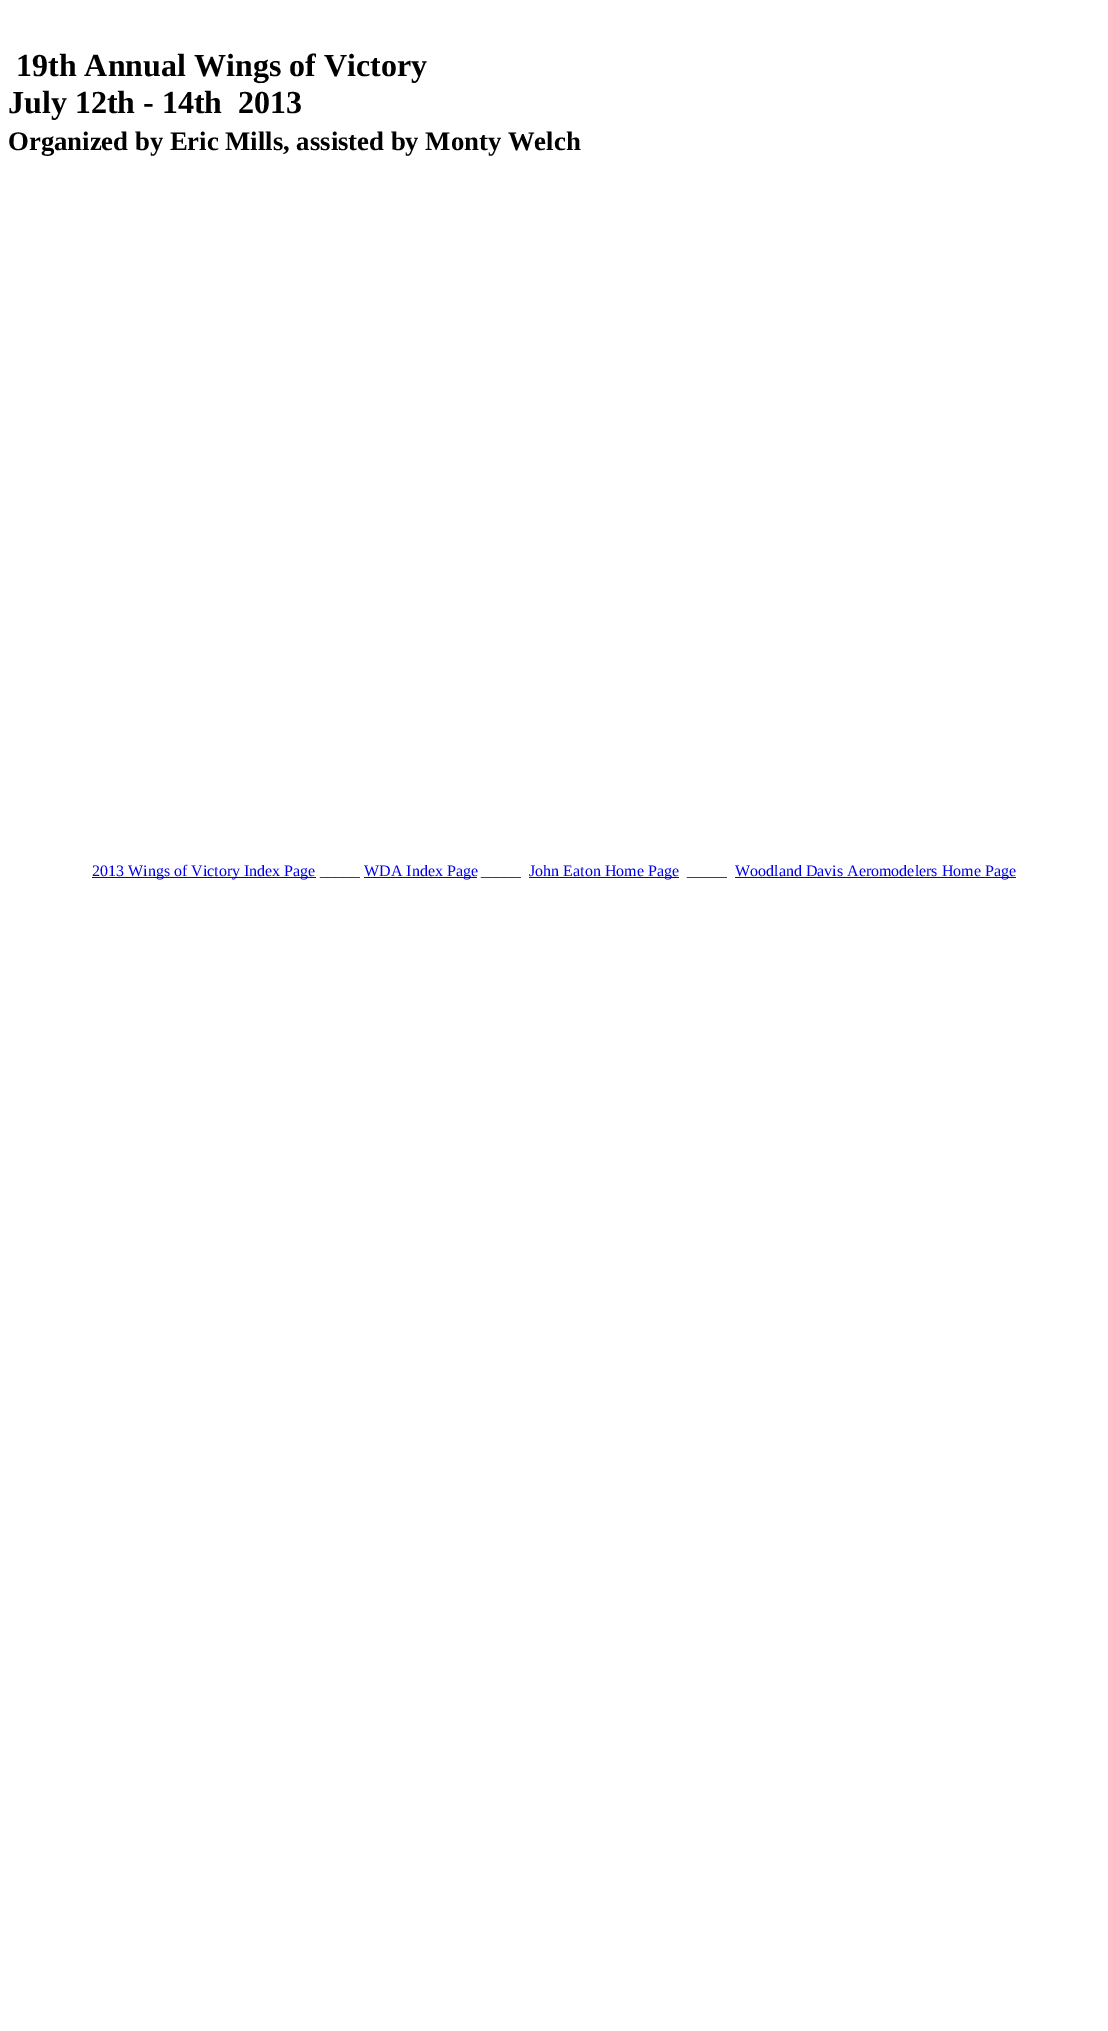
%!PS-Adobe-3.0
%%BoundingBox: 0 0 1108 2031
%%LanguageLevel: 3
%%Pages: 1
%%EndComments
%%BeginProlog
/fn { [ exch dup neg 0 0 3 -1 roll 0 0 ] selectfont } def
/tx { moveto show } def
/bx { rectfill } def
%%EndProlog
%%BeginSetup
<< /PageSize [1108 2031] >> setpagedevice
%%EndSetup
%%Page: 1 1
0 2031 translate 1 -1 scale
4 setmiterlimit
1 setgray
0 0 1108 2031 bx
/LiberationSerif-Bold 32 fn
0 setgray
(19th Annual Wings of Victory) 16 76 tx
(July 12th - 14th  2013) 8 113 tx
/LiberationSerif-Bold 26.7 fn
(Organized by Eric Mills, assisted by Monty Welch) 8 150 tx
0 0 0.933 setrgbcolor
92 877 224 1 bx
/LiberationSerif-Regular 16 fn
(2013 Wings of Victory Index Page) 92 876 tx
0 setgray
(_____) 320 876 tx
0 0 0.933 setrgbcolor
364 877 113 1 bx
(WDA Index Page) 364 876 tx
0 setgray
(_____) 481 876 tx
0 0 0.933 setrgbcolor
529 877 150 1 bx
(John Eaton Home Page) 529 876 tx
0 setgray
(_____) 687 876 tx
0 0 0.933 setrgbcolor
735 877 281 1 bx
(Woodland Davis Aeromodelers Home Page) 735 876 tx
showpage
%%EOF
